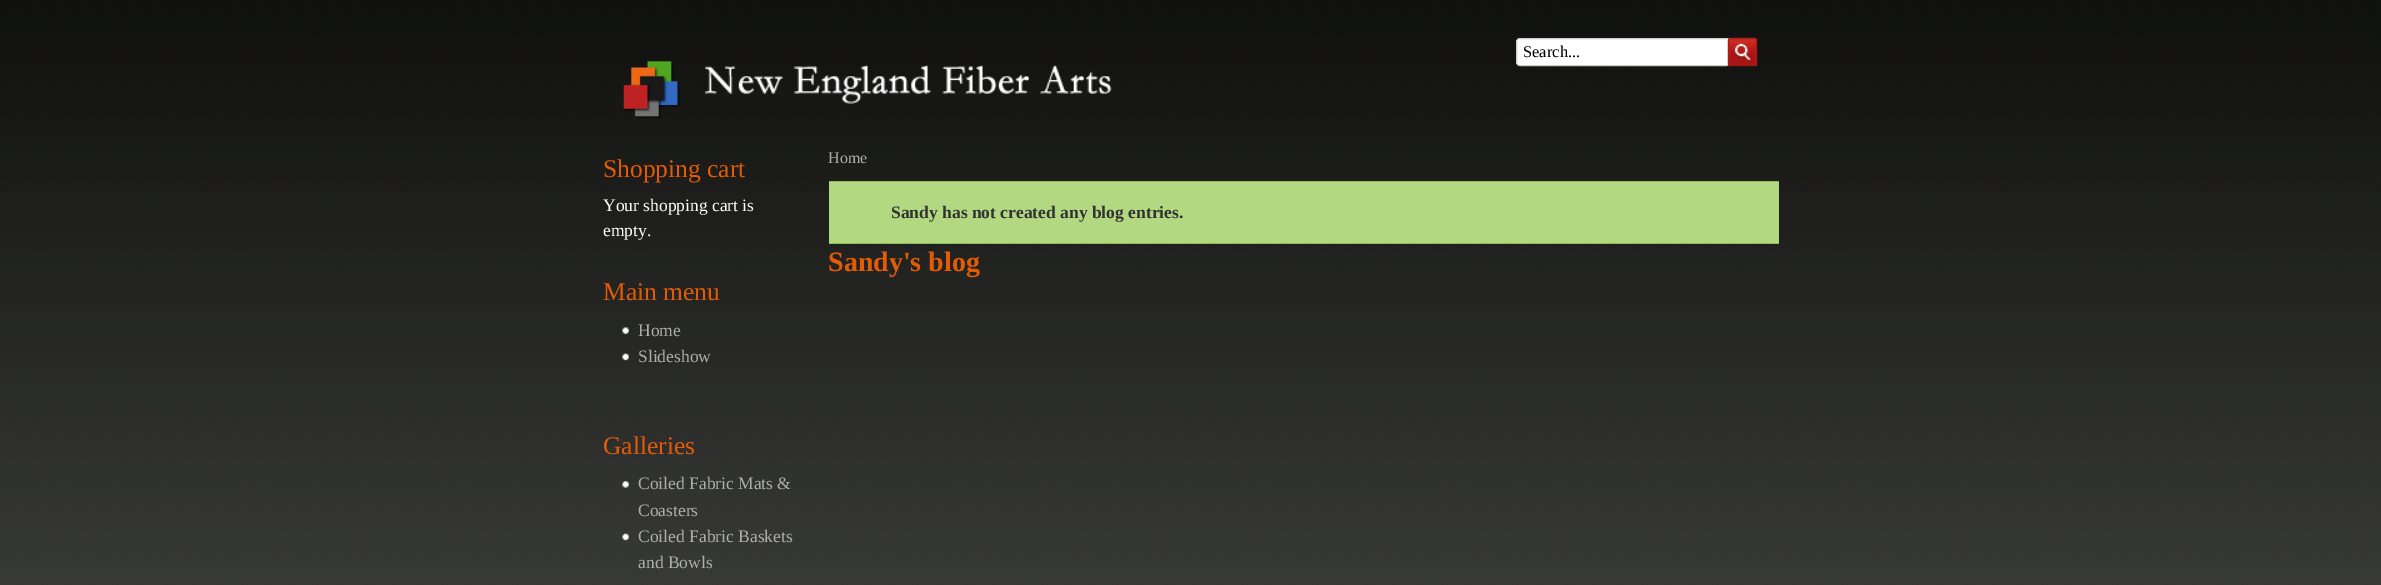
%!PS-Adobe-3.0
%%BoundingBox: 0 0 2381 585
%%LanguageLevel: 3
%%Pages: 1
%%EndComments
%%BeginProlog
/f { fill } bind def
/S { stroke } bind def
/q { gsave } bind def
/Q { grestore } bind def
/fn { [ exch dup neg 0 0 3 -1 roll 0 0 ] selectfont } def
/tx { moveto show } def
/bx { rectfill } def
/rr { 5 dict begin { /r /h /w /y /x } { exch def } forall
  x r add y moveto x w add y 2 copy h add r arct x w add y h add x 1 index r arct
  x y h add x y r arct x y 2 copy exch w add exch r arct closepath end } def
/im { 5 dict begin { /h /w /y /x /name } { exch def } forall
  gsave x y translate w h scale
  w h 8 [w 0 0 h 0 0] name (r) file false 3 colorimage grestore end } def
%%EndProlog
%%BeginSetup
<< /PageSize [2381 585] >> setpagedevice
%%EndSetup
%%Page: 1 1
0 585 translate 1 -1 scale
4 setmiterlimit
1 setgray
0 0 2381 585 bx
(image0.raw) 0 0 2381 585 im
1516.5 38.5 214 27 3.5 rr q f Q
0.8 setgray
S
/LiberationSerif-Regular 16.5 fn
0 setgray
(Search...) 1523 57 tx
(image1.raw) 1727 37 31 30 im
(image2.raw) 623 61 489 58 im
/LiberationSerif-Regular 25.5 fn
0.894 0.357 0.02 setrgbcolor
(Shopping cart) 603 177 tx
/LiberationSerif-Regular 17.5 fn
1 setgray
(Your shopping cart is) 603 211 tx
(empty.) 603 236 tx
/LiberationSerif-Regular 25.5 fn
0.894 0.357 0.02 setrgbcolor
(Main menu) 603 300 tx
(image3.raw) 622 327 7 7 im
/LiberationSerif-Regular 17.5 fn
0.682 setgray
(Home) 638 336 tx
(image4.raw) 622 353 7 8 im
(Slideshow) 638 362 tx
/LiberationSerif-Regular 25.5 fn
0.894 0.357 0.02 setrgbcolor
(Galleries) 603 454 tx
(image5.raw) 622 481 7 7 im
/LiberationSerif-Regular 17.5 fn
0.682 setgray
(Coiled Fabric Mats &) 638 489 tx
(Coasters) 638 516 tx
(image6.raw) 622 533 7 8 im
(Coiled Fabric Baskets) 638 542 tx
(and Bowls) 638 568 tx
/LiberationSerif-Regular 16 fn
(Home) 828 163 tx
0.698 0.851 0.51 setrgbcolor
829 182 950 61 bx
0.553 0.749 0.314 setrgbcolor
829 181 950 1 bx
829 243 950 1 bx
/LiberationSerif-Bold 17.5 fn
0.196 setgray
(Sandy has not created any blog entries.) 891 218 tx
/LiberationSerif-Bold 28 fn
0.894 0.357 0.02 setrgbcolor
(Sandy's blog) 828 271 tx
showpage
%%EOF
